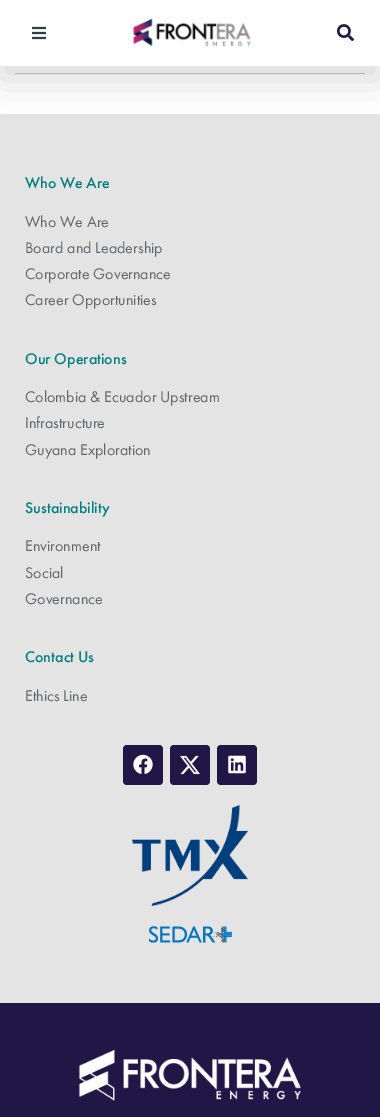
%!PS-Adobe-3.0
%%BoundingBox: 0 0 380 1117
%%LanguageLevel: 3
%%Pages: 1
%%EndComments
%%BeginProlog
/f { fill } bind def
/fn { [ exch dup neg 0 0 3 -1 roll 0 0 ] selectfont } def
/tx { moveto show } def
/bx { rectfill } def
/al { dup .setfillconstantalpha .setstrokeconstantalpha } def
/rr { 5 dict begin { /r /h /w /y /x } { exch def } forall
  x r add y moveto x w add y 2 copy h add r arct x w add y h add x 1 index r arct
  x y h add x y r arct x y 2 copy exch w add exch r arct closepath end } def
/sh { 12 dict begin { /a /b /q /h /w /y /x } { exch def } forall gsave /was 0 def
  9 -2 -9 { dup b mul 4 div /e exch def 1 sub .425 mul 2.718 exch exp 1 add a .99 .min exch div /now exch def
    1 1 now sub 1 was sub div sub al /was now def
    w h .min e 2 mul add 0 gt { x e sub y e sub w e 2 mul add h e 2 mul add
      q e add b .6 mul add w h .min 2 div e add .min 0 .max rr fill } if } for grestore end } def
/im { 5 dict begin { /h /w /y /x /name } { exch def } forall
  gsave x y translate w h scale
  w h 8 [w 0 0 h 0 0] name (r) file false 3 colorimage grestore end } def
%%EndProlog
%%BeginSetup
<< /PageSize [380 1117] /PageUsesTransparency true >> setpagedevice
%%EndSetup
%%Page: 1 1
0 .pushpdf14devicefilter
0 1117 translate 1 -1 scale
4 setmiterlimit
1 setgray
0 0 380 1117 bx
0.8 setgray
15 73 350 1 bx
0.894 setgray
0 114 380 889 bx
0 setgray
0 13 380 66 0 17.5 0.15 sh
1 setgray
0 0 380 66 bx
(image0.raw) 32 26 14 14 im
(image1.raw) 132 18 119 29 im
(image2.raw) 337 24 17 18 im
/FuturaPT-Medium 16 fn
0.004 0.502 0.494 setrgbcolor
(Who We Are) 25 188 tx
/FuturaPT-Regular 16 fn
0.388 0.4 0.416 setrgbcolor
(Who We Are) 25 227 tx
(Board and Leadership) 25 253 tx
(Corporate Governance) 25 279 tx
(Career Opportunities) 25 305 tx
/FuturaPT-Medium 16 fn
0.004 0.502 0.494 setrgbcolor
(Our Operations) 25 364 tx
/FuturaPT-Regular 16 fn
0.388 0.4 0.416 setrgbcolor
(Colombia & Ecuador Upstream) 25 402 tx
(Infrastructure) 25 428 tx
(Guyana Exploration) 25 455 tx
/FuturaPT-Medium 16 fn
0.004 0.502 0.494 setrgbcolor
(Sustainability) 25 513 tx
/FuturaPT-Regular 16 fn
0.388 0.4 0.416 setrgbcolor
(Environment) 25 551 tx
(Social) 25 578 tx
(Governance) 25 604 tx
/FuturaPT-Medium 16 fn
0.004 0.502 0.494 setrgbcolor
(Contact Us) 25 662 tx
/FuturaPT-Regular 16 fn
0.388 0.4 0.416 setrgbcolor
(Ethics Line) 25 701 tx
0.125 0.09 0.278 setrgbcolor
123 745 40 40 4 rr f
(image3.raw) 133 754 20 20 im
170 745 40 40 4 rr f
(image4.raw) 180 755 20 20 im
217 745 40 40 4 rr f
(image5.raw) 228 755 18 19 im
(image6.raw) 132 805 116 101 im
(image7.raw) 149 926 83 17 im
0 1003 380 114 bx
(image8.raw) 78 1049 224 52 im
.poppdf14devicefilter showpage
%%EOF
